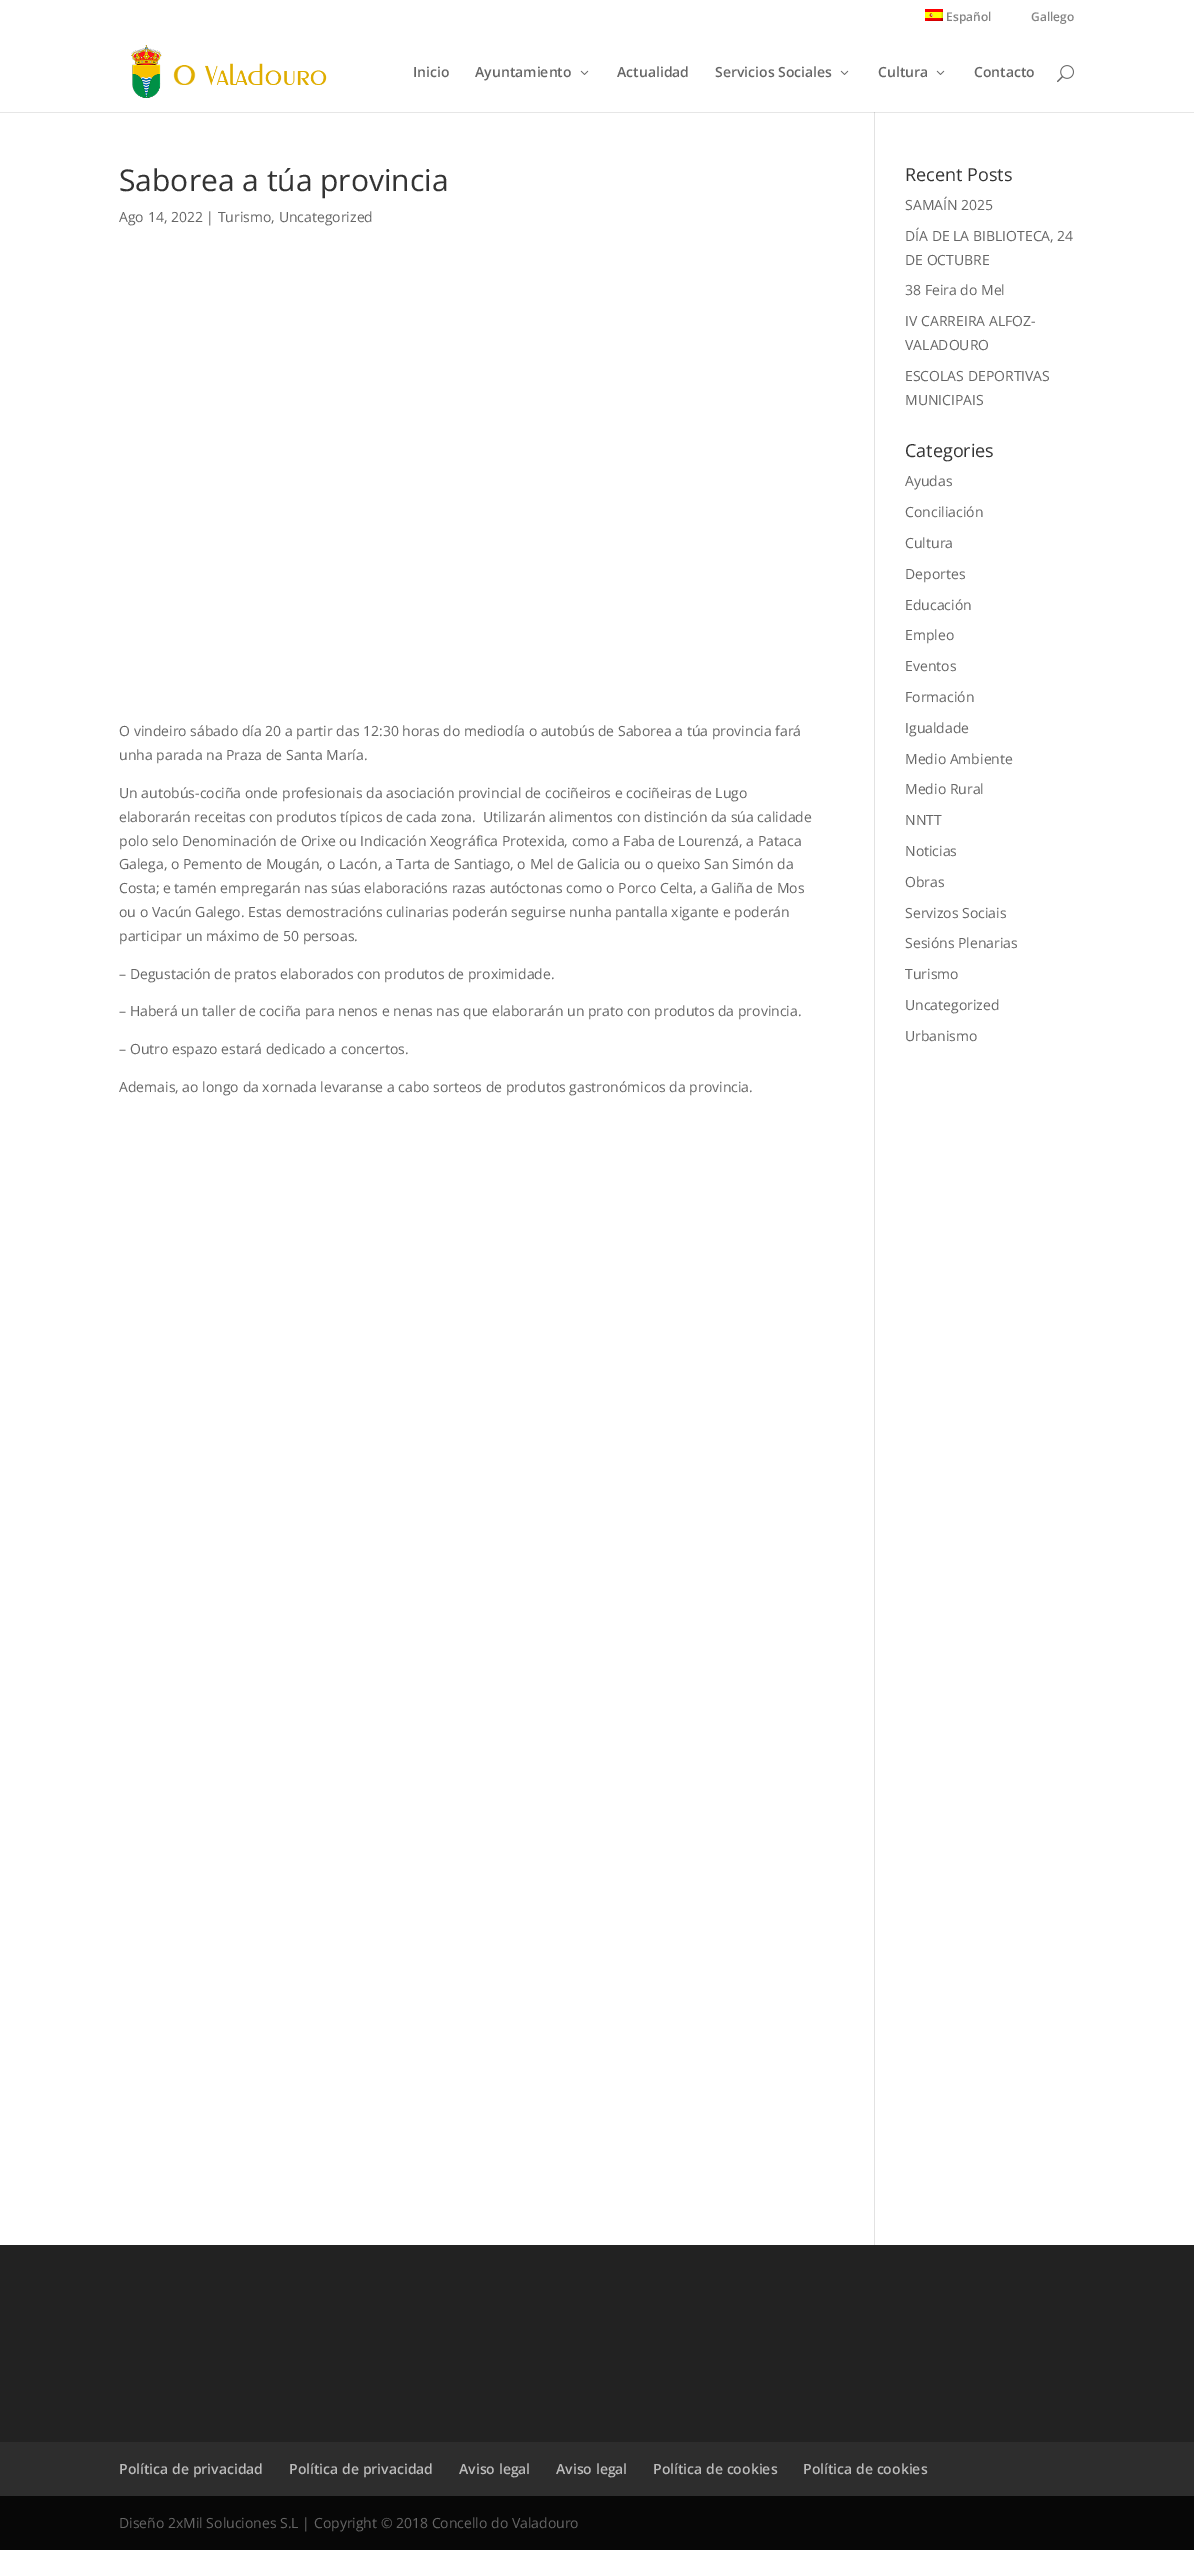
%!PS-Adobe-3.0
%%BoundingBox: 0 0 1194 2563
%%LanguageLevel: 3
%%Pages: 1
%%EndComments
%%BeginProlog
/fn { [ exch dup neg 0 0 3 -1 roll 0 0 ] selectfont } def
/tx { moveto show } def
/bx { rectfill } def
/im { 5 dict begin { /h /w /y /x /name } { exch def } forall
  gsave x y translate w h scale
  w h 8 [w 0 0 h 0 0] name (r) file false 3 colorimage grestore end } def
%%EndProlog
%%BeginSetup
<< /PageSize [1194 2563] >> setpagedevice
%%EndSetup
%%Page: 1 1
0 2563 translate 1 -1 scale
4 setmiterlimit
1 setgray
0 0 1194 2563 bx
0.902 setgray
0 112 1194 1 bx
(image0.raw) 925 9 18 12 im
/OpenSans-SemiBold 12 fn
0.518 setgray
(Español) 946 21 tx
(Gallego) 1031 21 tx
0.886 setgray
874 107 1 2138 bx
1 setgray
874 107 1 5 bx
(image1.raw) 131 45 196 53 im
/OpenSans-SemiBold 14 fn
0.4 setgray
(Inicio) 413 77 tx
(Ayuntamiento) 475 77 tx
(image2.raw) 580 70 9 5 im
(Actualidad) 617 77 tx
(Servicios Sociales) 715 77 tx
(image2.raw) 840 70 9 5 im
(Cultura) 878 77 tx
(image2.raw) 936 70 9 5 im
(Contacto) 974 77 tx
(image3.raw) 1057 65 17 18 im
0.796 setgray
874 112 1 1 bx
/OpenSans-Regular 30 fn
0.2 setgray
(Saborea a túa provincia) 119 191 tx
/OpenSans-Regular 14 fn
0.4 setgray
(Ago 14, 2022 | Turismo, Uncategorized) 119 222 tx
(O vindeiro sábado día 20 a partir das 12:30 horas do mediodía o autobús de Saborea a túa provincia fará) 119 736 tx
(unha parada na Praza de Santa María.) 119 760 tx
(Un autobús-cociña onde profesionais da asociación provincial de cociñeiros e cociñeiras de Lugo) 119 798 tx
(elaborarán receitas con produtos típicos de cada zona.  Utilizarán alimentos con distinción da súa calidade) 119 822 tx
(polo selo Denominación de Orixe ou Indicación Xeográfica Protexida, como a Faba de Lourenzá, a Pataca) 119 846 tx
(Galega, o Pemento de Mougán, o Lacón, a Tarta de Santiago, o Mel de Galicia ou o queixo San Simón da) 119 869 tx
(Costa; e tamén empregarán nas súas elaboracións razas autóctonas como o Porco Celta, a Galiña de Mos) 119 893 tx
(ou o Vacún Galego. Estas demostracións culinarias poderán seguirse nunha pantalla xigante e poderán) 119 917 tx
(participar un máximo de 50 persoas.) 119 941 tx
(– Degustación de pratos elaborados con produtos de proximidade.) 119 979 tx
(– Haberá un taller de cociña para nenos e nenas nas que elaborarán un prato con produtos da provincia.) 119 1016 tx
(– Outro espazo estará dedicado a concertos.) 119 1054 tx
(Ademais, ao longo da xornada levaranse a cabo sorteos de produtos gastronómicos da provincia.) 119 1092 tx
/OpenSans-Regular 18 fn
0.2 setgray
(Recent Posts) 905 181 tx
/OpenSans-Regular 14 fn
0.4 setgray
(SAMAÍN 2025) 905 210 tx
(DÍA DE LA BIBLIOTECA, 24) 905 241 tx
(DE OCTUBRE) 905 265 tx
(38 Feira do Mel) 905 295 tx
(IV CARREIRA ALFOZ-) 905 326 tx
(VALADOURO) 905 350 tx
(ESCOLAS DEPORTIVAS) 905 381 tx
(MUNICIPAIS) 905 405 tx
/OpenSans-Regular 18 fn
0.2 setgray
(Categories) 905 457 tx
/OpenSans-Regular 14 fn
0.4 setgray
(Ayudas) 905 486 tx
(Conciliación) 905 517 tx
(Cultura) 905 548 tx
(Deportes) 905 579 tx
(Educación) 905 610 tx
(Empleo) 905 640 tx
(Eventos) 905 671 tx
(Formación) 905 702 tx
(Igualdade) 905 733 tx
(Medio Ambiente) 905 764 tx
(Medio Rural) 905 794 tx
(NNTT) 905 825 tx
(Noticias) 905 856 tx
(Obras) 905 887 tx
(Servizos Sociais) 905 918 tx
(Sesións Plenarias) 905 948 tx
(Turismo) 905 979 tx
(Uncategorized) 905 1010 tx
(Urbanismo) 905 1041 tx
0.133 setgray
0 2245 1194 197 bx
0.176 setgray
0 2442 1194 54 bx
/OpenSans-SemiBold 14 fn
0.733 setgray
(Política de privacidad) 119 2474 tx
(Política de privacidad) 289 2474 tx
(Aviso legal) 459 2474 tx
(Aviso legal) 556 2474 tx
(Política de cookies) 653 2474 tx
(Política de cookies) 803 2474 tx
0.027 setgray
0 2496 1194 54 bx
/OpenSans-Regular 14 fn
0.4 setgray
(Diseño 2xMil Soluciones S.L | Copyright © 2018 Concello do Valadouro) 119 2528 tx
showpage
%%EOF
